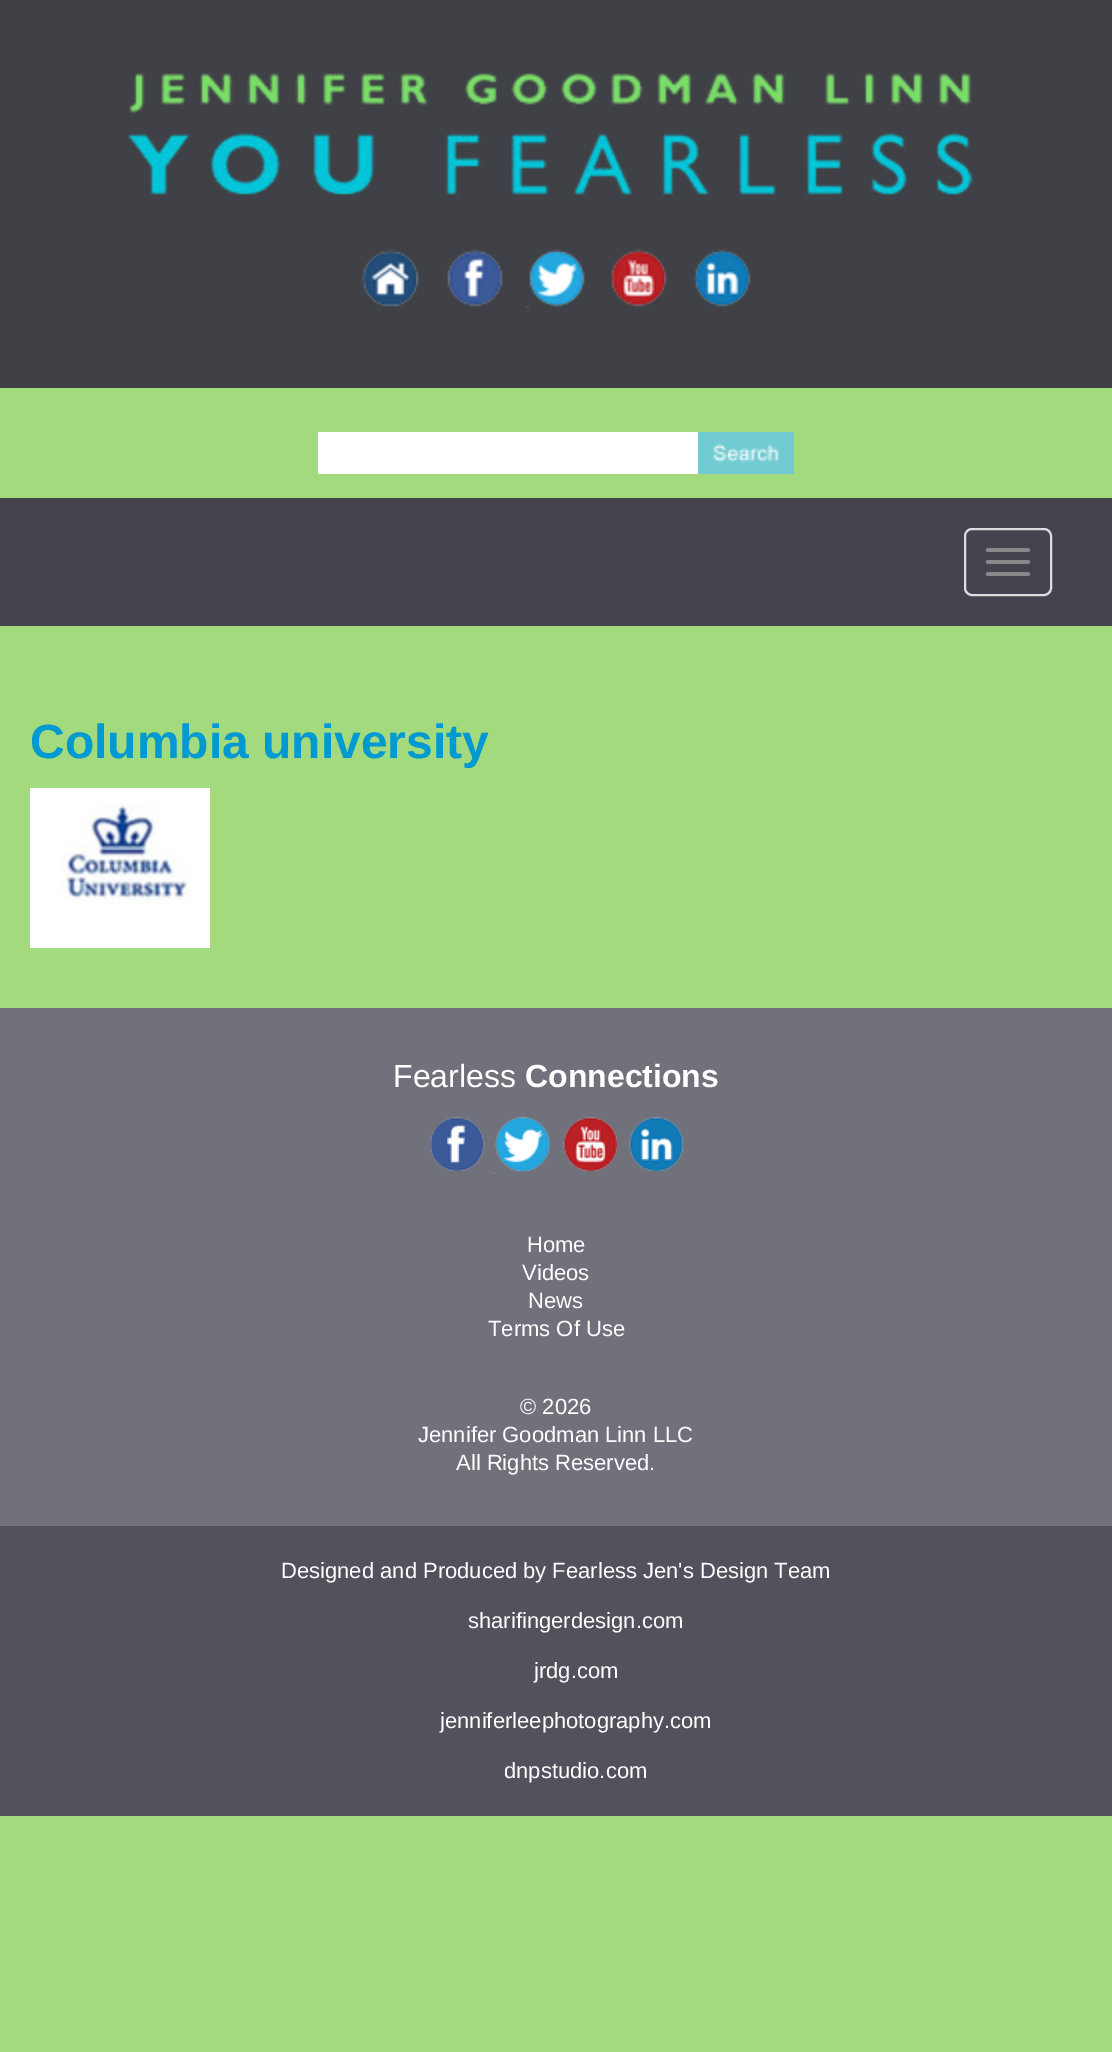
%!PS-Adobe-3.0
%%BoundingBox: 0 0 1112 2052
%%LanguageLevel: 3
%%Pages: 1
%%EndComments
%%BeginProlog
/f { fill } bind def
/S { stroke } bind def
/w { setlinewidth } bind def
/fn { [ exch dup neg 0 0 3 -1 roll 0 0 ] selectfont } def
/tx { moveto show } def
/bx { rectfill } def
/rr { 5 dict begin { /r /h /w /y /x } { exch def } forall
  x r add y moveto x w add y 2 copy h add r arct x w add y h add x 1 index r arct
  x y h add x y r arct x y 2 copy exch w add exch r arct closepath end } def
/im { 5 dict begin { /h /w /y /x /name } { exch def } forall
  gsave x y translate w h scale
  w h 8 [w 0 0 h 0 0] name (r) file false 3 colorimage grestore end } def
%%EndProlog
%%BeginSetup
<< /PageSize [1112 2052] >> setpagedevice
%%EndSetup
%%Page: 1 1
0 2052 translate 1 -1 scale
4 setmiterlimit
0.639 0.855 0.494 setrgbcolor
0 0 1112 2052 bx
0.251 0.255 0.275 setrgbcolor
0 0 1112 388 bx
(image0.raw) 128 72 845 123 im
(image1.raw) 361 249 58 58 im
(image2.raw) 447 249 56 58 im
(image3.raw) 526 249 59 59 im
(image4.raw) 611 249 56 58 im
(image5.raw) 694 249 57 58 im
1 setgray
318 432 380 42 bx
0.439 0.796 0.824 setrgbcolor
698 432 96 42 bx
(image6.raw) 713 443 66 20 im
0.267 0.263 0.306 setrgbcolor
0 498 1112 128 bx
0.867 setgray
2 w
965 529 86 66 7 rr S
0.533 setgray
986 548 44 4 2 rr f
986 560 44 4 2 rr f
986 572 44 4 2 rr f
/LiberationSans-Bold 48 fn
0 0.6 0.824 setrgbcolor
(Columbia university) 30 758 tx
(image7.raw) 30 788 180 160 im
0.443 0.443 0.486 setrgbcolor
0 1008 1112 518 bx
/LiberationSans-Regular 32 fn
1 setgray
(Fearless) 393 1087 tx
/LiberationSans-Bold 32 fn
(Connections) 525 1087 tx
(image8.raw) 430 1116 55 56 im
(image9.raw) 492 1116 59 58 im
(image10.raw) 563 1116 55 56 im
(image11.raw) 628 1116 56 56 im
/LiberationSans-Regular 22 fn
(Home) 527 1252 tx
(Videos) 522 1280 tx
(News) 528 1308 tx
(Terms Of Use) 488 1336 tx
(© 2026) 520 1414 tx
(Jennifer Goodman Linn LLC) 418 1442 tx
(All Rights Reserved.) 456 1470 tx
0.325 0.322 0.361 setrgbcolor
0 1526 1112 290 bx
1 setgray
(Designed and Produced by Fearless Jen's Design Team) 281 1578 tx
(sharifingerdesign.com) 468 1628 tx
(jrdg.com) 534 1678 tx
(jenniferleephotography.com) 440 1728 tx
(dnpstudio.com) 504 1778 tx
showpage
%%EOF
